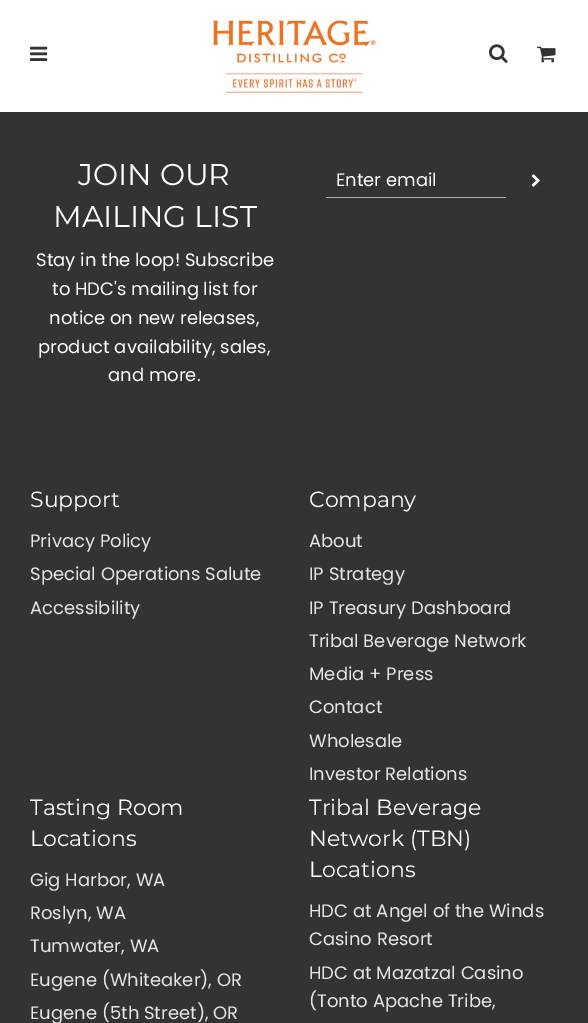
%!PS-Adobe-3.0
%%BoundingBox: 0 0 588 1023
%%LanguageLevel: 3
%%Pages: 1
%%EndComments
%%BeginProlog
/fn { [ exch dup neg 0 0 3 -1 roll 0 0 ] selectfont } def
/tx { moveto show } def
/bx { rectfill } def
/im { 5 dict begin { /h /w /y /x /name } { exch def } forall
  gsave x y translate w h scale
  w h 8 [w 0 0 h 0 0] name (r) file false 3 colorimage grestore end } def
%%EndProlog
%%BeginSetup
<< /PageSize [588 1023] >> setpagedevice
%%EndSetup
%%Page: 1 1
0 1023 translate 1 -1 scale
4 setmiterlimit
0.2 setgray
0 0 588 1023 bx
1 setgray
0 0 588 112 bx
(image0.raw) 30 46 18 15 im
(image1.raw) 213 19 164 77 im
(image2.raw) 489 44 19 19 im
(image3.raw) 537 46 19 17 im
/Montserrat-Regular 30 fn
(JOIN OUR) 78 185 tx
(MAILING LIST) 53 227 tx
/Poppins-Regular 18 fn
(Stay in the loop! Subscribe) 36 266 tx
(to HDC's mailing list for) 52 295 tx
(notice on new releases,) 49 324 tx
(product availability, sales,) 38 353 tx
(and more.) 108 381 tx
0.678 setgray
326 197 180 1 bx
1 setgray
(Enter email) 336 186 tx
(image4.raw) 531 174 9 13 im
/Montserrat-Regular 22 fn
(Support) 30 507 tx
/Poppins-Regular 18 fn
0.902 setgray
(Privacy Policy) 30 547 tx
(Special Operations Salute) 30 580 tx
(Accessibility) 30 614 tx
/Montserrat-Regular 22 fn
1 setgray
(Company) 309 507 tx
/Poppins-Regular 18 fn
0.902 setgray
(About) 309 547 tx
(IP Strategy) 309 580 tx
(IP Treasury Dashboard) 309 614 tx
(Tribal Beverage Network) 309 647 tx
(Media + Press) 309 680 tx
(Contact) 309 713 tx
(Wholesale) 309 747 tx
(Investor Relations) 309 780 tx
/Montserrat-Regular 22 fn
1 setgray
(Tasting Room) 30 815 tx
(Locations) 30 846 tx
/Poppins-Regular 18 fn
0.902 setgray
(Gig Harbor, WA) 30 886 tx
(Roslyn, WA) 30 919 tx
(Tumwater, WA) 30 952 tx
(Eugene \(Whiteaker\), OR) 30 986 tx
(Eugene \(5th Street\), OR) 30 1019 tx
/Montserrat-Regular 22 fn
1 setgray
(Tribal Beverage) 309 815 tx
(Network \(TBN\)) 309 846 tx
(Locations) 309 877 tx
/Poppins-Regular 18 fn
0.902 setgray
(HDC at Angel of the Winds) 309 917 tx
(Casino Resort) 309 945 tx
(HDC at Mazatzal Casino) 309 979 tx
(\(Tonto Apache Tribe,) 309 1007 tx
showpage
%%EOF
